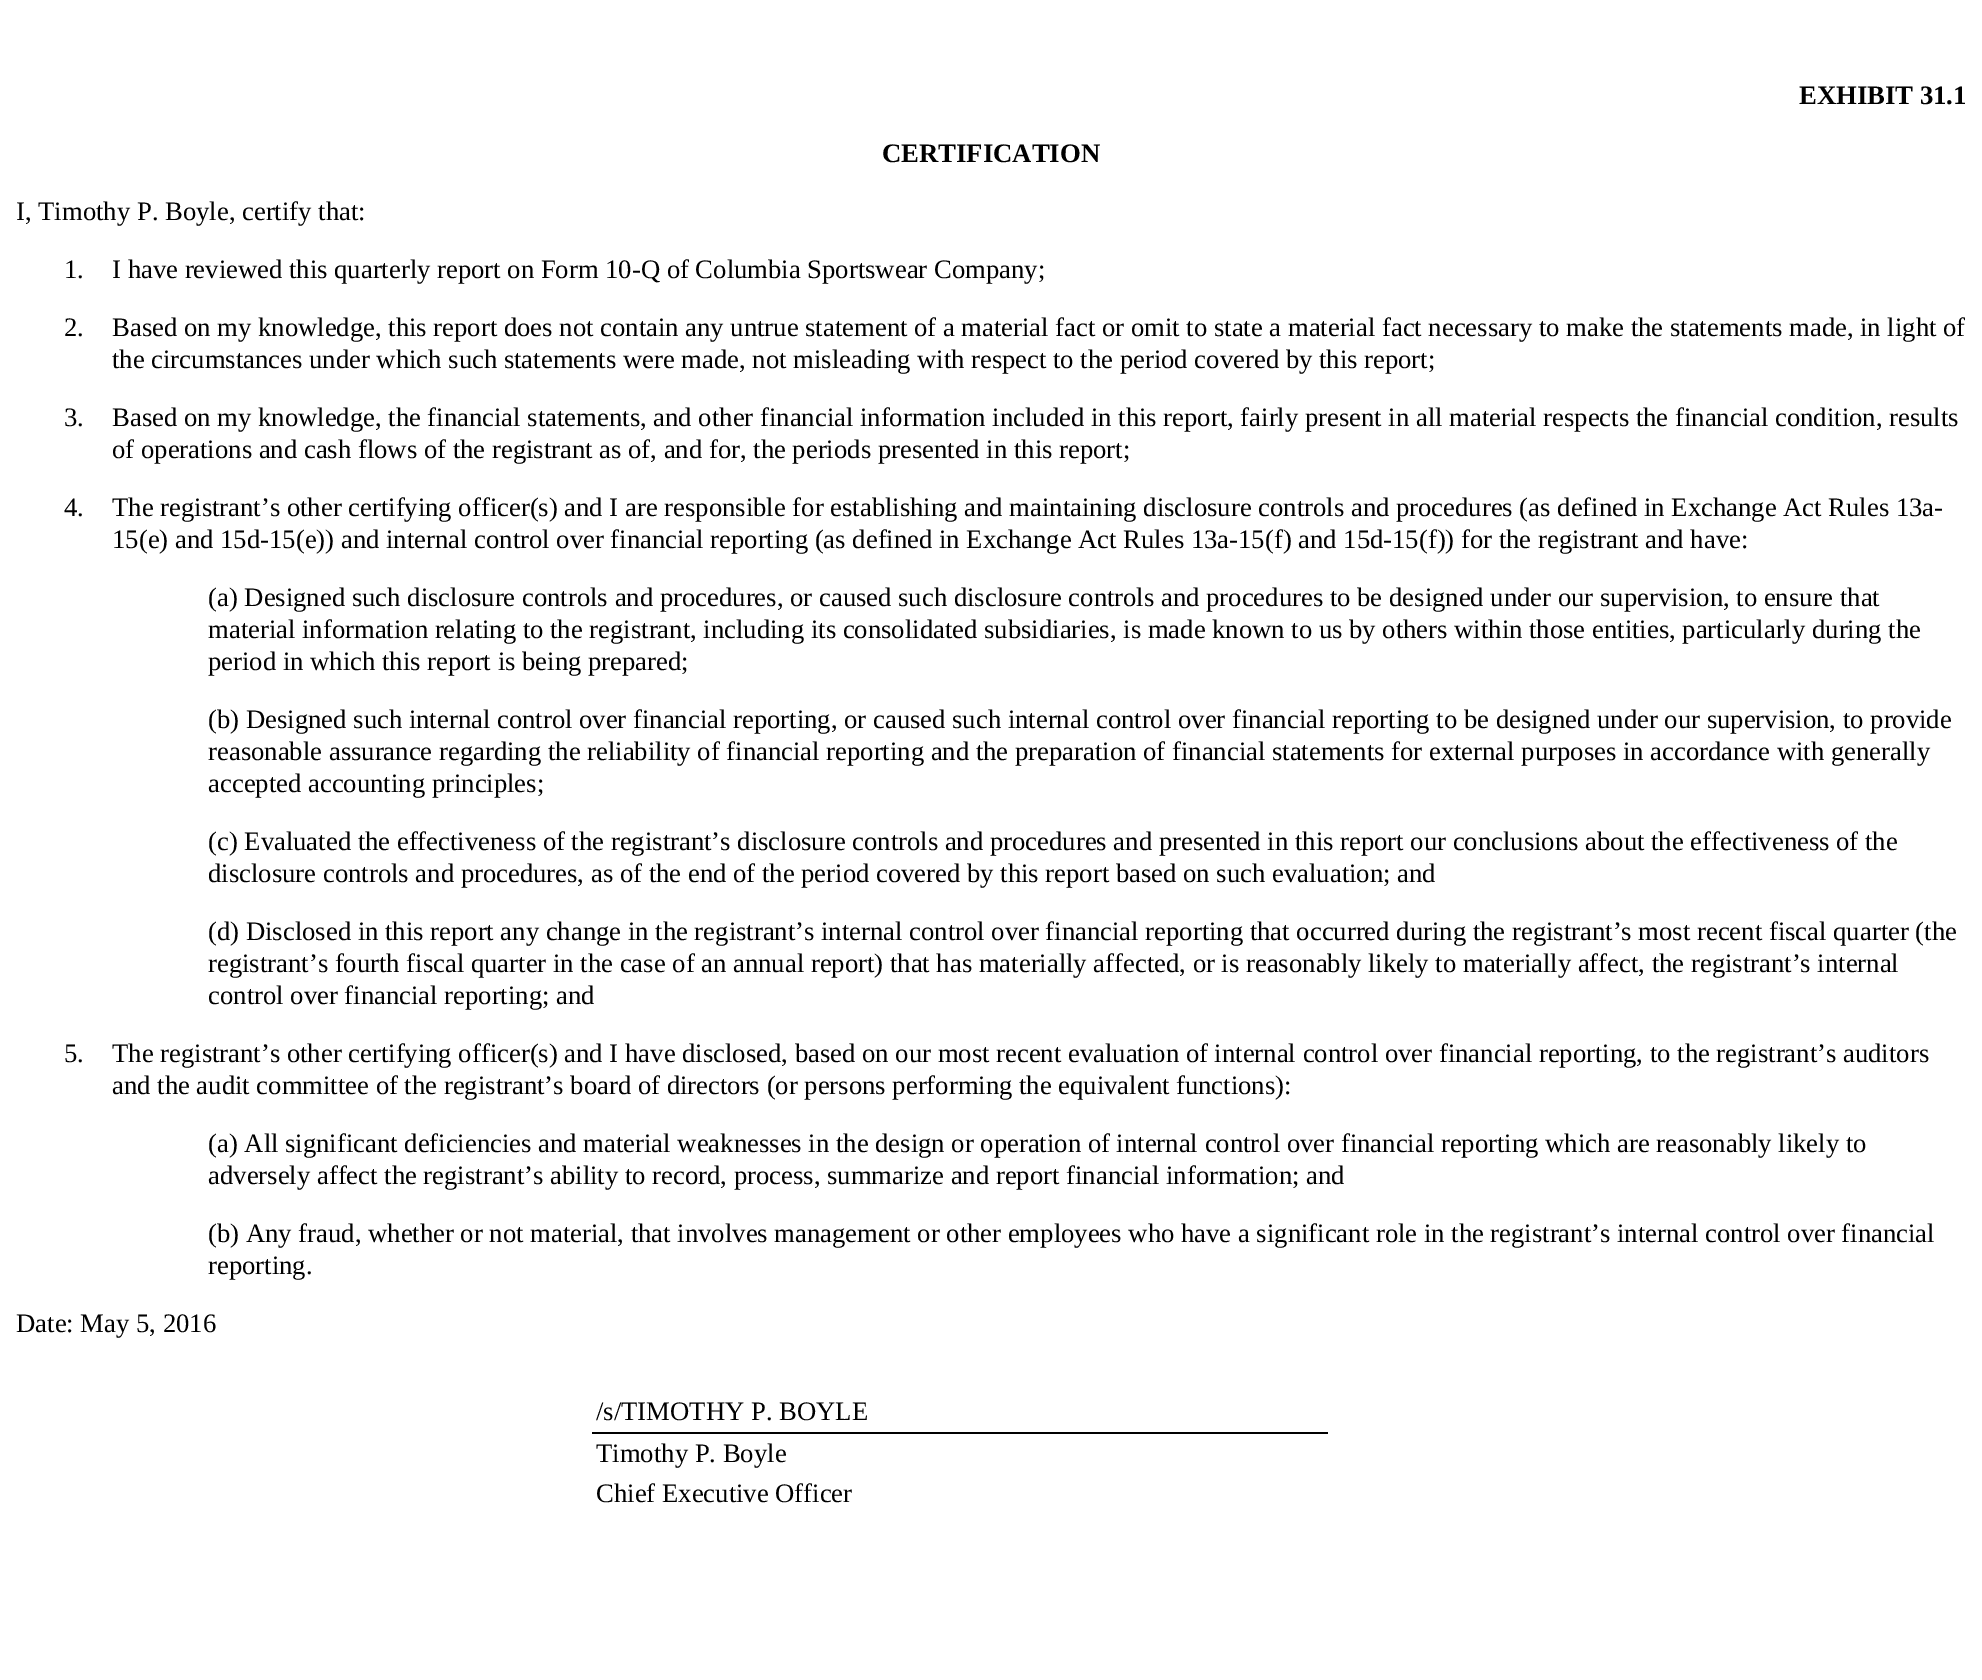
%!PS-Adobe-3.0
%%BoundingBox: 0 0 1982 1680
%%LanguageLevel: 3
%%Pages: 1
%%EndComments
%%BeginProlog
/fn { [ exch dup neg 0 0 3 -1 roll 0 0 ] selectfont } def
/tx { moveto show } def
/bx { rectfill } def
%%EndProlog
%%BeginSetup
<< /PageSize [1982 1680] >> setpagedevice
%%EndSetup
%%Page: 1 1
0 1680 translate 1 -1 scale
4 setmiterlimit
1 setgray
0 0 1982 1680 bx
/LiberationSerif-Bold 26.67 fn
0 setgray
(EXHIBIT 31.1) 1799 104 tx
(CERTIFICATION) 882 162 tx
/LiberationSerif-Regular 26.67 fn
(I, Timothy P. Boyle, certify that:) 16 220 tx
(1.) 64 278 tx
(I have reviewed this quarterly report on Form 10-Q of Columbia Sportswear Company;) 112 278 tx
(2.) 64 336 tx
(Based on my knowledge, this report does not contain any untrue statement of a material fact or omit to state a material fact necessary to make the statements made, in light of) 112 336 tx
(the circumstances under which such statements were made, not misleading with respect to the period covered by this report;) 112 368 tx
(3.) 64 426 tx
(Based on my knowledge, the financial statements, and other financial information included in this report, fairly present in all material respects the financial condition, results) 112 426 tx
(of operations and cash flows of the registrant as of, and for, the periods presented in this report;) 112 458 tx
(4.) 64 516 tx
(The registrant’s other certifying officer\(s\) and I are responsible for establishing and maintaining disclosure controls and procedures \(as defined in Exchange Act Rules 13a-) 112 516 tx
(15\(e\) and 15d-15\(e\)\) and internal control over financial reporting \(as defined in Exchange Act Rules 13a-15\(f\) and 15d-15\(f\)\) for the registrant and have:) 112 548 tx
(\(a\) Designed such disclosure controls and procedures, or caused such disclosure controls and procedures to be designed under our supervision, to ensure that) 208 606 tx
(material information relating to the registrant, including its consolidated subsidiaries, is made known to us by others within those entities, particularly during the) 208 638 tx
(period in which this report is being prepared;) 208 670 tx
(\(b\) Designed such internal control over financial reporting, or caused such internal control over financial reporting to be designed under our supervision, to provide) 208 728 tx
(reasonable assurance regarding the reliability of financial reporting and the preparation of financial statements for external purposes in accordance with generally) 208 760 tx
(accepted accounting principles;) 208 792 tx
(\(c\) Evaluated the effectiveness of the registrant’s disclosure controls and procedures and presented in this report our conclusions about the effectiveness of the) 208 850 tx
(disclosure controls and procedures, as of the end of the period covered by this report based on such evaluation; and) 208 882 tx
(\(d\) Disclosed in this report any change in the registrant’s internal control over financial reporting that occurred during the registrant’s most recent fiscal quarter \(the) 208 940 tx
(registrant’s fourth fiscal quarter in the case of an annual report\) that has materially affected, or is reasonably likely to materially affect, the registrant’s internal) 208 972 tx
(control over financial reporting; and) 208 1004 tx
(5.) 64 1062 tx
(The registrant’s other certifying officer\(s\) and I have disclosed, based on our most recent evaluation of internal control over financial reporting, to the registrant’s auditors) 112 1062 tx
(and the audit committee of the registrant’s board of directors \(or persons performing the equivalent functions\):) 112 1094 tx
(\(a\) All significant deficiencies and material weaknesses in the design or operation of internal control over financial reporting which are reasonably likely to) 208 1152 tx
(adversely affect the registrant’s ability to record, process, summarize and report financial information; and) 208 1184 tx
(\(b\) Any fraud, whether or not material, that involves management or other employees who have a significant role in the registrant’s internal control over financial) 208 1242 tx
(reporting.) 208 1274 tx
(Date: May 5, 2016) 16 1332 tx
592 1432 736 2 bx
(/s/TIMOTHY P. BOYLE) 596 1420 tx
(Timothy P. Boyle) 596 1462 tx
(Chief Executive Officer) 596 1502 tx
showpage
%%EOF
